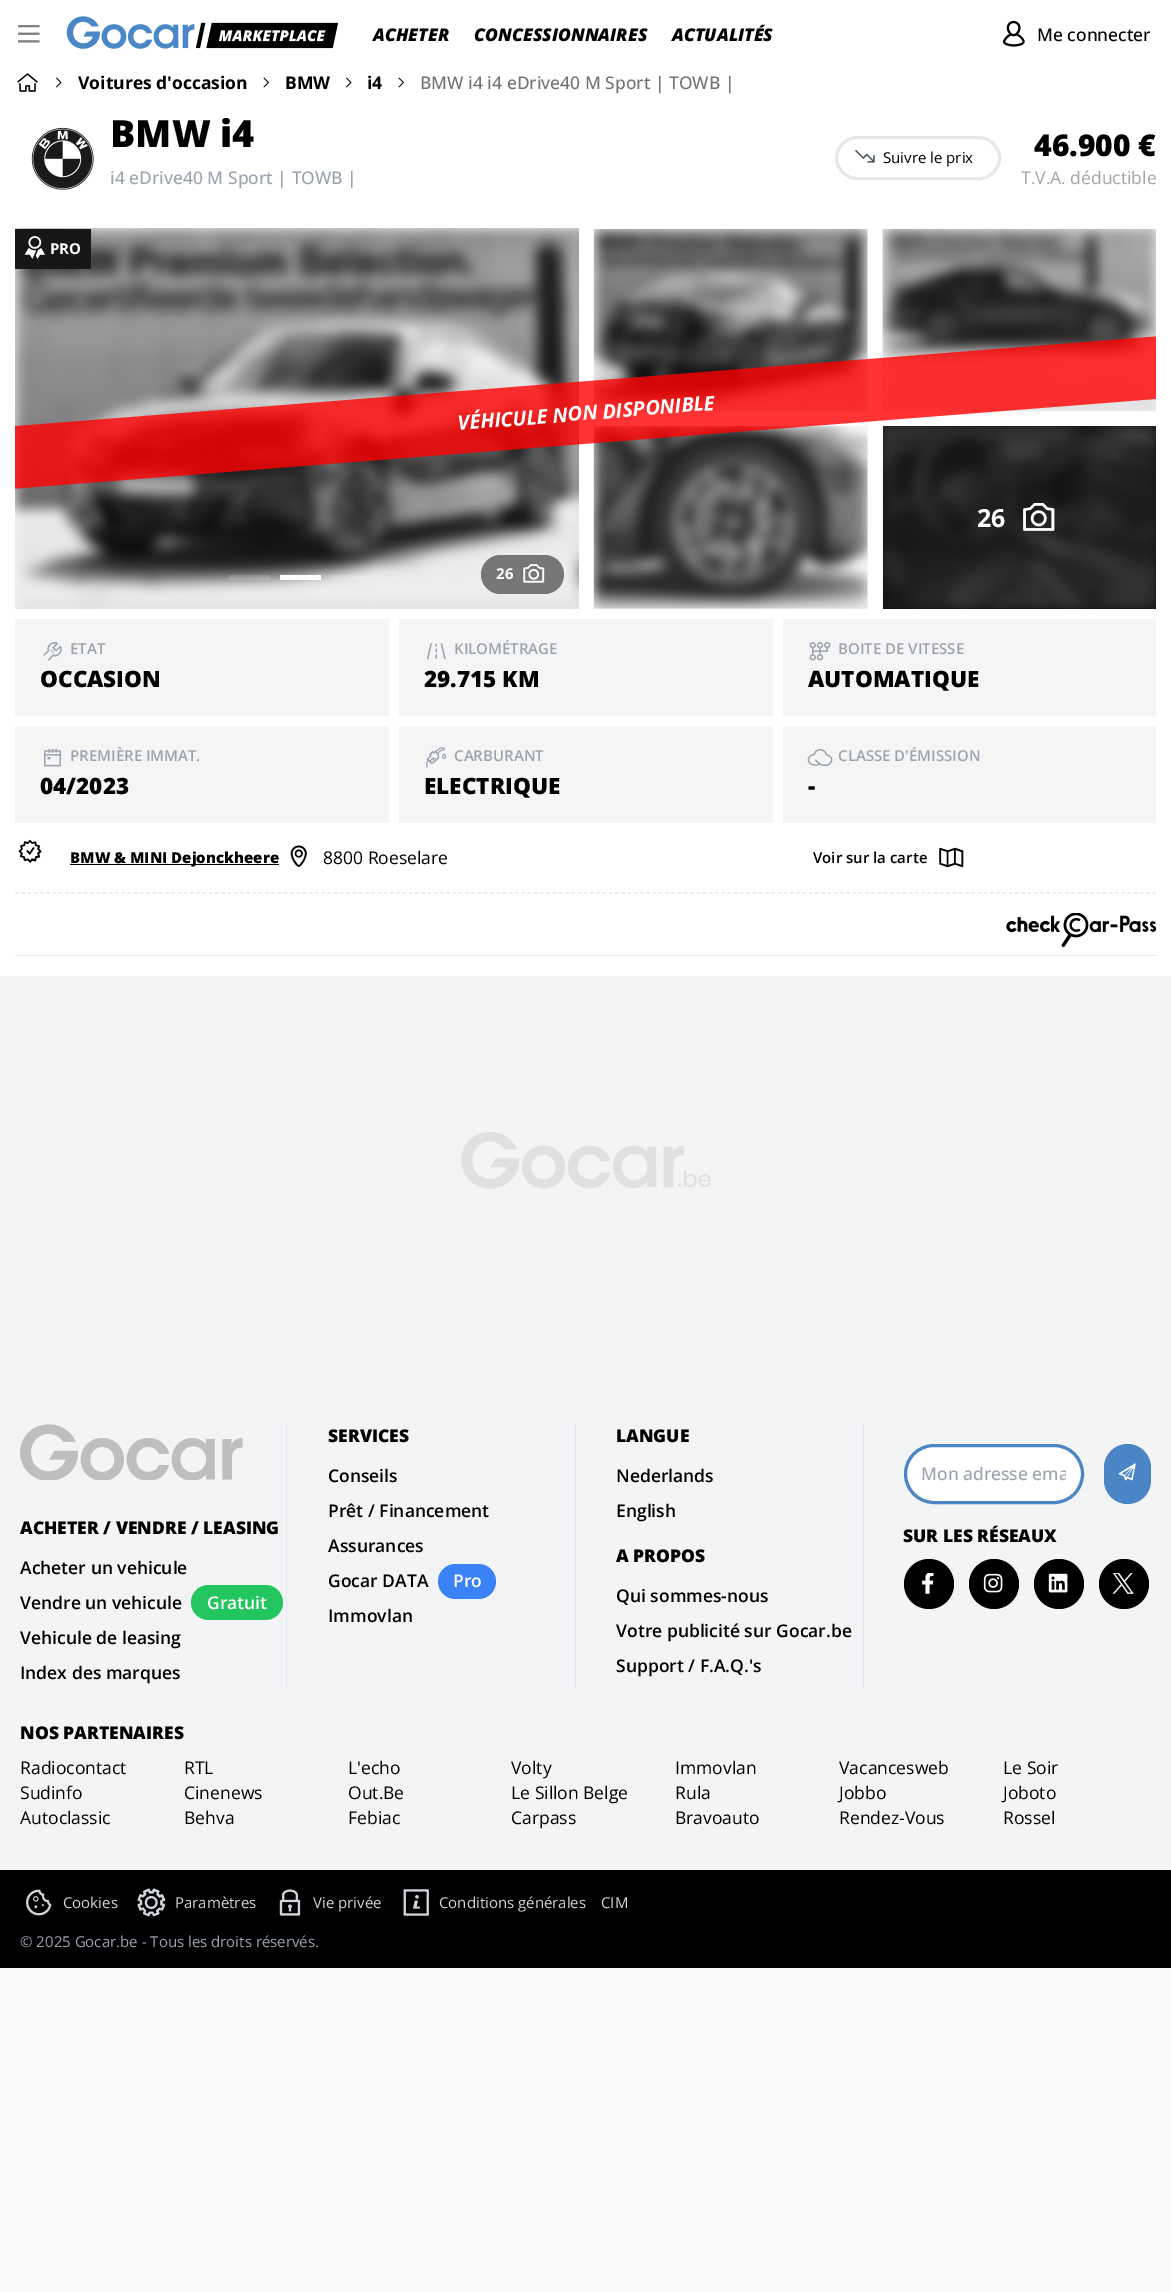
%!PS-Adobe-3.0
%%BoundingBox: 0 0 1171 2292
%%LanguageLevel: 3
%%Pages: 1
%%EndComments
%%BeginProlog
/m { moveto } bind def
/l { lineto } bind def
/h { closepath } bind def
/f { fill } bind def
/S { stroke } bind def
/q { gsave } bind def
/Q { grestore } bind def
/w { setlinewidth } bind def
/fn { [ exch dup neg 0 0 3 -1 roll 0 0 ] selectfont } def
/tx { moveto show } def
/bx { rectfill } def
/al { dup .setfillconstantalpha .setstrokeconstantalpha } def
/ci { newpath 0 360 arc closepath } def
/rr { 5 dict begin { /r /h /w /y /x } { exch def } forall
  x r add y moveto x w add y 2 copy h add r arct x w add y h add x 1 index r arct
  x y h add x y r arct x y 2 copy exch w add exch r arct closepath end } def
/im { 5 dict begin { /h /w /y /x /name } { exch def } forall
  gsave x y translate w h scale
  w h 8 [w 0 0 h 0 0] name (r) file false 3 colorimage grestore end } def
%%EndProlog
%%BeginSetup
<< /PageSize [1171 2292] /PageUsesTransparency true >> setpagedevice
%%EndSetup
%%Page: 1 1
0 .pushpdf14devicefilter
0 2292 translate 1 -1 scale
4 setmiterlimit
0.98 setgray
0 0 1171 2292 bx
1 setgray
0 0 1171 976 bx
(image0.raw) 18 25 22 18 im
(image1.raw) 66 16 273 33 im
/OpenSans-ExtraBoldItalic 17.5 fn
0 setgray
(ACHETER) 373 41 tx
(CONCESSIONNAIRES) 474 41 tx
(ACTUALITÉS) 672 41 tx
(image2.raw) 1002 20 23 27 im
/OpenSans-Medium 17.5 fn
(Me connecter) 1037 41 tx
(image3.raw) 17 73 21 19 im
(image4.raw) 56 77 6 11 im
/OpenSans-Bold 17.5 fn
(Voitures d'occasion) 78 89 tx
(image5.raw) 263 77 6 11 im
(BMW) 285 89 tx
(image4.raw) 346 77 6 11 im
(i4) 367 89 tx
(image5.raw) 398 77 6 11 im
/OpenSans-Medium 17.5 fn
0.451 setgray
(BMW i4 i4 eDrive40 M Sport | TOWB |) 420 89 tx
(image6.raw) 31 127 63 63 im
/OpenSans-ExtraBold 37.5 fn
0 setgray
(BMW i4) 110 147 tx
0.898 0.906 0.922 setrgbcolor
3 w
836.5 137.5 163 41 20.5 rr S
(image7.raw) 855 150 20 13 im
/OpenSans-Regular 15 fn
0 setgray
(Suivre le prix) 883 163 tx
/OpenSans-ExtraBold 30 fn
(46.900 €) 1034 156 tx
/OpenSans-Regular 17.5 fn
0.639 setgray
(T.V.A. déductible) 1021 184 tx
/OpenSans-Medium 17.5 fn
0.612 0.639 0.686 setrgbcolor
(i4 eDrive40 M Sport | TOWB |) 110 184 tx
0.961 setgray
15 229 564 380 bx
(image8.raw) 15 228 564 381 im
(image9.raw) 567 228 12 381 im
0.09 setgray
15 229 76 40 bx
(image10.raw) 24 236 21 23 im
/OpenSans-Bold 15 fn
1 setgray
(PRO) 50 254 tx
0.5 al
0 setgray
481 555 83 39 19.5 rr f
1 al
1 setgray
(26) 496 579 tx
(image11.raw) 523 564 22 19 im
0.13 al
229 575 41 5 bx
1 al
280 575 41 5 bx
0.13 al
331 575 40 5 bx
1 al
0.961 setgray
594 229 274 182 bx
(image12.raw) 593 228 275 184 im
883 229 273 182 bx
(image13.raw) 882 228 274 184 im
594 426 274 183 bx
(image14.raw) 593 426 275 183 im
0.09 setgray
883 426 273 183 bx
(image15.raw) 882 426 274 183 im
/OpenSans-Bold 25 fn
1 setgray
(26) 977 527 tx
(image16.raw) 1023 503 32 28 im
q
15 229 1141 380 rectclip
0.8 al
1 0 0 setrgbcolor
-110 436 m 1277 327 l 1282 389 l -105 498 l h f
Q
/OpenSans-BoldItalic 20 fn
q 458 430 translate -4.5 rotate 0 0 m (VÉHICULE NON DISPONIBLE) show Q
0.961 setgray
15 619 374 97 bx
(image17.raw) 43 642 19 19 im
/OpenSans-SemiBold 15 fn
0.612 0.639 0.686 setrgbcolor
(ETAT) 70 654 tx
/OpenSans-ExtraBold 22.5 fn
0 setgray
(OCCASION) 40 687 tx
0.961 setgray
399 619 374 97 bx
(image18.raw) 427 643 19 17 im
/OpenSans-SemiBold 15 fn
0.612 0.639 0.686 setrgbcolor
(KILOMÉTRAGE) 454 654 tx
/OpenSans-ExtraBold 22.5 fn
0 setgray
(29.715 KM) 424 687 tx
0.961 setgray
783 619 373 97 bx
(image19.raw) 809 642 22 19 im
/OpenSans-SemiBold 15 fn
0.612 0.639 0.686 setrgbcolor
(BOITE DE VITESSE) 838 654 tx
/OpenSans-ExtraBold 22.5 fn
0 setgray
(AUTOMATIQUE) 808 687 tx
0.961 setgray
15 726 374 97 bx
(image20.raw) 44 748 17 19 im
/OpenSans-SemiBold 15 fn
0.612 0.639 0.686 setrgbcolor
(PREMIÈRE IMMAT.) 70 761 tx
/OpenSans-ExtraBold 22.5 fn
0 setgray
(04/2023) 40 794 tx
0.961 setgray
399 726 374 97 bx
(image21.raw) 426 747 21 21 im
/OpenSans-SemiBold 15 fn
0.612 0.639 0.686 setrgbcolor
(CARBURANT) 454 761 tx
/OpenSans-ExtraBold 22.5 fn
0 setgray
(ELECTRIQUE) 424 794 tx
0.961 setgray
783 726 373 97 bx
(image22.raw) 807 749 26 18 im
/OpenSans-SemiBold 15 fn
0.612 0.639 0.686 setrgbcolor
(CLASSE D'ÉMISSION) 838 761 tx
/OpenSans-ExtraBold 22.5 fn
0 setgray
(-) 808 794 tx
(image23.raw) 18 839 24 24 im
70 864 209 1 bx
/OpenSans-ExtraBold 15 fn
(BMW & MINI Dejonckheere) 70 863 tx
(image24.raw) 290 845 17 22 im
/OpenSans-Regular 17.5 fn
(8800 Roeselare) 323 864 tx
/OpenSans-SemiBold 15 fn
(Voir sur la carte) 813 863 tx
(image25.raw) 939 847 25 21 im
0.898 0.906 0.922 setrgbcolor
1.2 w
[3.75 2.5] 0 setdash
15 893 m 1156 893 l S
(image26.raw) 1006 913 150 34 im
15 955 1141 1 bx
0.953 0.957 0.965 setrgbcolor
0 976 1171 894 bx
(image27.raw) 461 1132 250 57 im
0.898 0.906 0.922 setrgbcolor
575 1424 1 266 bx
/OpenSans-ExtraBold 17.5 fn
0 setgray
(SERVICES) 328 1442 tx
/OpenSans-SemiBold 17.5 fn
(Conseils) 328 1482 tx
(Prêt / Financement) 328 1517 tx
(Assurances) 328 1552 tx
(Gocar DATA) 328 1587 tx
0.231 0.51 0.965 setrgbcolor
438 1564 58 35 17.5 rr f
1 setgray
(Pro) 453 1587 tx
0 setgray
(Immovlan) 328 1622 tx
0.898 0.906 0.922 setrgbcolor
863 1424 1 266 bx
/OpenSans-ExtraBold 17.5 fn
0 setgray
(LANGUE) 616 1442 tx
/OpenSans-SemiBold 17.5 fn
(Nederlands) 616 1482 tx
(English) 616 1517 tx
/OpenSans-ExtraBold 17.5 fn
(A PROPOS) 616 1562 tx
/OpenSans-SemiBold 17.5 fn
(Qui sommes-nous) 616 1602 tx
(Votre publicité sur Gocar.be) 616 1637 tx
(Support / F.A.Q.'s) 616 1672 tx
1 setgray
905.5 1445.5 177 57 28.5 rr q f Q
0.29 0.522 0.776 setrgbcolor
3 w
[] 0 setdash
S
q
921 1461 145 24 rectclip
/OpenSans-Medium 17.5 fn
0.612 0.639 0.686 setrgbcolor
(Mon adresse ema) 921 1480 tx
Q
1104 1444 47 60 23.5 rr f
(image28.raw) 1118 1463 18 18 im
/OpenSans-ExtraBold 17.5 fn
0 setgray
(SUR LES RÉSEAUX) 903 1542 tx
929 1584 25 ci f
(image29.raw) 922 1573 12 21 im
994 1584 25 ci f
(image30.raw) 983 1573 20 20 im
1059 1584 25 ci f
(image31.raw) 1048 1573 20 20 im
1124 1584 25 ci f
(image32.raw) 1113 1573 21 21 im
0.898 0.906 0.922 setrgbcolor
286 1424 1 266 bx
(image33.raw) 20 1424 223 56 im
0 setgray
(ACHETER / VENDRE / LEASING) 20 1534 tx
/OpenSans-SemiBold 17.5 fn
(Acheter un vehicule) 20 1574 tx
(Vendre un vehicule) 20 1609 tx
0.133 0.773 0.369 setrgbcolor
191 1585 92 35 17.5 rr f
1 setgray
(Gratuit) 207 1609 tx
0 setgray
(Vehicule de leasing) 20 1644 tx
(Index des marques) 20 1679 tx
/OpenSans-ExtraBold 17.5 fn
(NOS PARTENAIRES) 20 1739 tx
/OpenSans-Regular 17.5 fn
(Radiocontact) 20 1774 tx
(RTL) 184 1774 tx
(L'echo) 348 1774 tx
(Volty) 511 1774 tx
(Immovlan) 675 1774 tx
(Vacancesweb) 839 1774 tx
(Le Soir) 1003 1774 tx
(Sudinfo) 20 1799 tx
(Cinenews) 184 1799 tx
(Out.Be) 348 1799 tx
(Le Sillon Belge) 511 1799 tx
(Rula) 675 1799 tx
(Jobbo) 839 1799 tx
(Joboto) 1003 1799 tx
(Autoclassic) 20 1824 tx
(Behva) 184 1824 tx
(Febiac) 348 1824 tx
(Carpass) 511 1824 tx
(Bravoauto) 675 1824 tx
(Rendez-Vous) 839 1824 tx
(Rossel) 1003 1824 tx
0 1870 1171 98 bx
(image34.raw) 26 1889 26 27 im
/OpenSans-Regular 15 fn
0.82 0.835 0.859 setrgbcolor
(Cookies) 63 1908 tx
(image35.raw) 137 1888 29 29 im
(Paramètres) 175 1908 tx
(image36.raw) 279 1889 22 27 im
(Vie privée) 313 1908 tx
(image37.raw) 403 1889 26 27 im
(Conditions générales) 439 1908 tx
(CIM) 601 1908 tx
0.612 0.639 0.686 setrgbcolor
(© 2025 Gocar.be - Tous les droits réservés.) 20 1947 tx
.poppdf14devicefilter showpage
%%EOF
